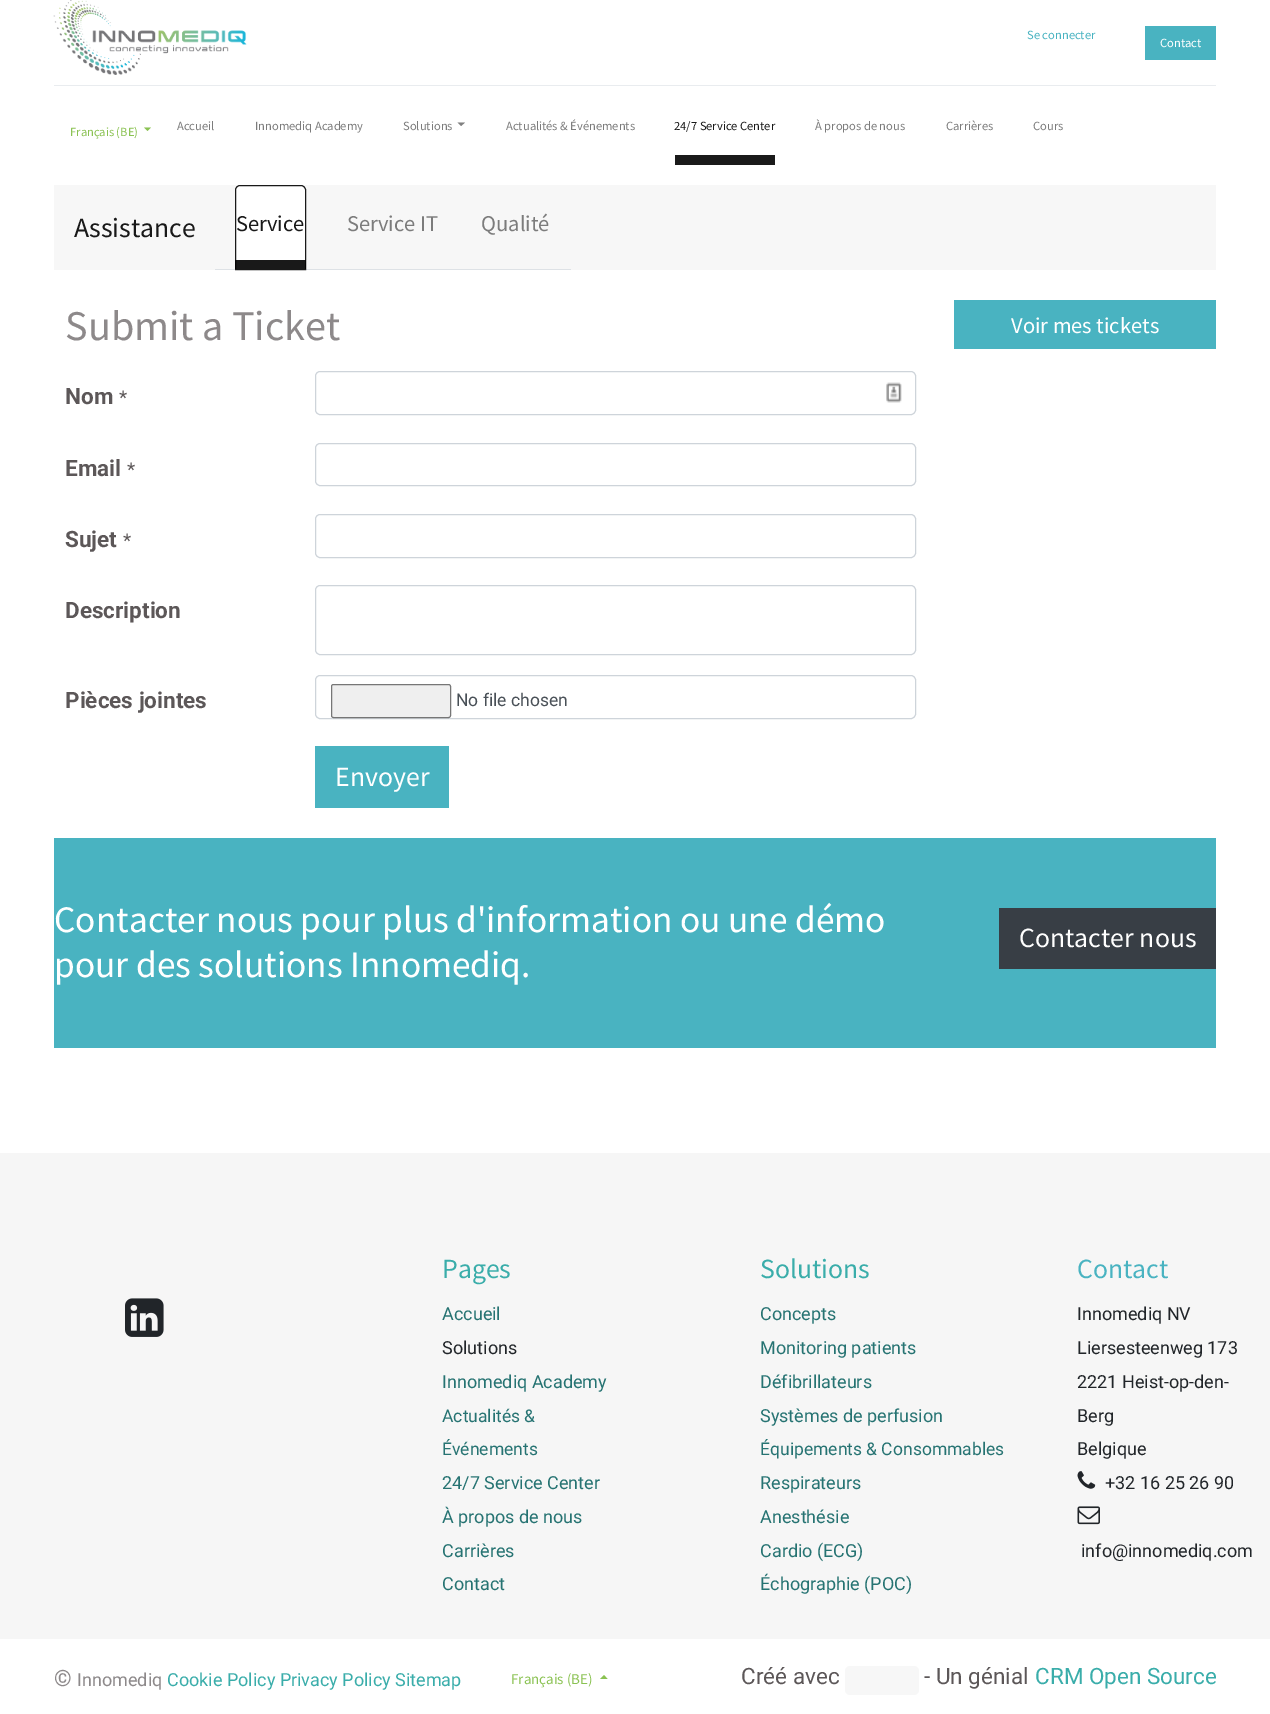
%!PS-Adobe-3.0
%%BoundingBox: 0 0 1270 1714
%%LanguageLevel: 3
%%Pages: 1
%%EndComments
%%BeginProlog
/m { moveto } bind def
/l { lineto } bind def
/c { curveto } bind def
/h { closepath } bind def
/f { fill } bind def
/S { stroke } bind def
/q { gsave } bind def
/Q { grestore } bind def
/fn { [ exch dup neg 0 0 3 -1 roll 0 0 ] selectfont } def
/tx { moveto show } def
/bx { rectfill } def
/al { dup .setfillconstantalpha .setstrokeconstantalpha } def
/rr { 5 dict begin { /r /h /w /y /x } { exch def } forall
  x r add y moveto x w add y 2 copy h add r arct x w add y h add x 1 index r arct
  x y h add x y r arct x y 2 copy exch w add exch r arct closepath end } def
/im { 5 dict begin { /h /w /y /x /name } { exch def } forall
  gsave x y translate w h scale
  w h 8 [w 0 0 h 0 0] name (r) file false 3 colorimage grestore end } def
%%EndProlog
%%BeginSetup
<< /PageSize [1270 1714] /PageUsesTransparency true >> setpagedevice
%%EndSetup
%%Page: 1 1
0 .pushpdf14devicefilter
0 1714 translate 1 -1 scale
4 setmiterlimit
1 setgray
0 0 1270 1714 bx
(image0.raw) 53 0 194 75 im
/SourceSansPro-Regular 12.5 fn
0.286 0.702 0.757 setrgbcolor
(Se connecter) 1027 39 tx
1145 26 71 34 bx
1 setgray
(Contact) 1160 47 tx
0.914 0.925 0.937 setrgbcolor
54 85 1162 1 bx
0.541 0.761 0.322 setrgbcolor
(Français \(BE\)) 70 136 tx
144 127.5 m 151 127.5 l 147.5 131 l h f
0.486 setgray
(Accueil) 177 130 tx
(Innomediq Academy) 255 130 tx
(Solutions) 403 130 tx
0.502 setgray
457.5 122.5 m 465 122.5 l 461 126 l h f
0.486 setgray
(Actualités & Événements) 506 130 tx
0.102 setgray
675 155 100 10 bx
0.098 setgray
(24/7 Service Center) 674 130 tx
0.486 setgray
(À propos de nous) 815 130 tx
(Carrières) 946 130 tx
(Cours) 1033 130 tx
0.969 setgray
54 185 1162 85 bx
/SourceSansPro-Regular 27.75 fn
0.098 setgray
(Assistance) 74 237 tx
0.871 0.886 0.902 setrgbcolor
215 269 356 1 bx
1 setgray
240 185 m 301 185 l 304 185 306 187 306 190 c 306 270 l 235 270 l 235 190 l 235 187 237 185 240 185 c h f
0.9 al
0 setgray
240 185.5 m 301 185.5 l 303.5 185.5 305.5 187.5 305.5 190 c 305.5 269.5 l 235.5 269.5 l 235.5 190 l 235.5 187.5 237.5 185.5 240 185.5 c h S
235 260 71 9 bx
/SourceSansPro-Regular 22.5 fn
1 al
0.098 setgray
(Service) 236 231 tx
0.486 setgray
(Service IT) 347 231 tx
(Qualité) 481 231 tx
/SourceSansPro-Regular 42.25 fn
0.553 0.537 0.541 setrgbcolor
(Submit a Ticket) 65 340 tx
/Roboto-Bold 22.5 fn
0.361 0.341 0.345 setrgbcolor
(Nom) 65 404 tx
/Roboto-Regular 19 fn
(*) 119 404 tx
(image1.raw) 886 382 16 21 im
0.808 0.831 0.855 setrgbcolor
315.5 371.5 600 43 4.5 rr S
/Roboto-Bold 22.5 fn
0.361 0.341 0.345 setrgbcolor
(Email) 65 476 tx
/Roboto-Regular 19 fn
(*) 127 476 tx
0.808 0.831 0.855 setrgbcolor
315.5 443.5 600 42 4.5 rr S
/Roboto-Bold 22.5 fn
0.361 0.341 0.345 setrgbcolor
(Sujet) 65 547 tx
/Roboto-Regular 19 fn
(*) 123 547 tx
0.808 0.831 0.855 setrgbcolor
315.5 514.5 600 43 4.5 rr S
/Roboto-Bold 22.5 fn
0.361 0.341 0.345 setrgbcolor
(Description) 65 618 tx
0.808 0.831 0.855 setrgbcolor
315.5 585.5 600 69 4.5 rr S
0.361 0.341 0.345 setrgbcolor
(Pièces jointes) 65 708 tx
0.808 0.831 0.855 setrgbcolor
315.5 675.5 600 43 4.5 rr S
0.937 setgray
331.5 684.5 119 33 2 rr q f Q
0.463 setgray
S
/Roboto-Regular 17.5 fn
0.286 0.314 0.341 setrgbcolor
(No file chosen) 456 706 tx
0.286 0.702 0.757 setrgbcolor
315 746 134 62 bx
/SourceSansPro-Regular 27.75 fn
1 setgray
(Envoyer) 335 786 tx
0.286 0.702 0.757 setrgbcolor
954 300 262 49 bx
/SourceSansPro-Regular 22.5 fn
1 setgray
(Voir mes tickets) 1011 333 tx
0.286 0.702 0.757 setrgbcolor
54 838 1162 210 bx
/SourceSansPro-Regular 37.4 fn
1 setgray
(Contacter nous pour plus d'information ou une démo) 54 932 tx
(pour des solutions Innomediq.) 54 977 tx
0.22 0.243 0.271 setrgbcolor
999 908 217 61 bx
/SourceSansPro-Regular 27.75 fn
1 setgray
(Contacter nous) 1019 947 tx
0.965 setgray
0 1153 1270 486 bx
(image2.raw) 125 1298 39 39 im
0.227 0.678 0.667 setrgbcolor
(Pages) 442 1278 tx
/Roboto-Regular 18 fn
0.149 0.451 0.447 setrgbcolor
(Accueil) 442 1320 tx
0.129 0.145 0.161 setrgbcolor
(Solutions) 442 1354 tx
0.149 0.451 0.447 setrgbcolor
(Innomediq Academy) 442 1388 tx
/Roboto-Regular 17.5 fn
(Actualités &) 442 1422 tx
(Événements) 442 1455 tx
/Roboto-Regular 18 fn
(24/7 Service Center) 442 1489 tx
(À propos de nous) 442 1523 tx
(Carrières) 442 1557 tx
(Contact) 442 1590 tx
/SourceSansPro-Regular 27.75 fn
0.227 0.678 0.667 setrgbcolor
(Solutions) 760 1278 tx
/Roboto-Regular 18 fn
0.149 0.451 0.447 setrgbcolor
(Concepts) 760 1320 tx
(Monitoring patients) 760 1354 tx
(Défibrillateurs) 760 1388 tx
(Systèmes de perfusion) 760 1422 tx
/Roboto-Regular 17.5 fn
(Équipements & Consommables) 760 1455 tx
/Roboto-Regular 18 fn
(Respirateurs) 760 1489 tx
(Anesthésie) 760 1523 tx
(Cardio \(ECG\)) 760 1557 tx
(Échographie \(POC\)) 760 1590 tx
/SourceSansPro-Regular 27.75 fn
0.286 0.702 0.757 setrgbcolor
(Contact) 1077 1278 tx
/Roboto-Regular 18 fn
0.129 0.145 0.161 setrgbcolor
(Innomediq NV) 1077 1320 tx
(Liersesteenweg 173) 1077 1354 tx
(2221 Heist-op-den-) 1077 1388 tx
(Berg) 1077 1422 tx
(Belgique) 1077 1455 tx
(image3.raw) 1077 1471 19 18 im
(+32 16 25 26 90) 1105 1489 tx
(image4.raw) 1077 1506 23 19 im
(info@innomediq.com) 1081 1557 tx
/Roboto-Regular 22.5 fn
0.553 0.537 0.541 setrgbcolor
(©) 54 1686 tx
/Roboto-Regular 18 fn
(Innomediq) 77 1686 tx
0.227 0.678 0.667 setrgbcolor
(Cookie Policy Privacy Policy Sitemap) 167 1686 tx
/SourceSansPro-Regular 15 fn
0.541 0.761 0.322 setrgbcolor
(Français \(BE\)) 511 1684 tx
607.5 1679 m 600 1679 l 604 1675 l h f
/Roboto-Regular 22.5 fn
0.361 0.341 0.345 setrgbcolor
(Créé avec) 741 1684 tx
0.969 setgray
845 1666 74 29 5 rr f
0.361 0.341 0.345 setrgbcolor
(- Un génial) 924 1684 tx
0.227 0.678 0.667 setrgbcolor
(CRM Open Source) 1035 1684 tx
.poppdf14devicefilter showpage
%%EOF
